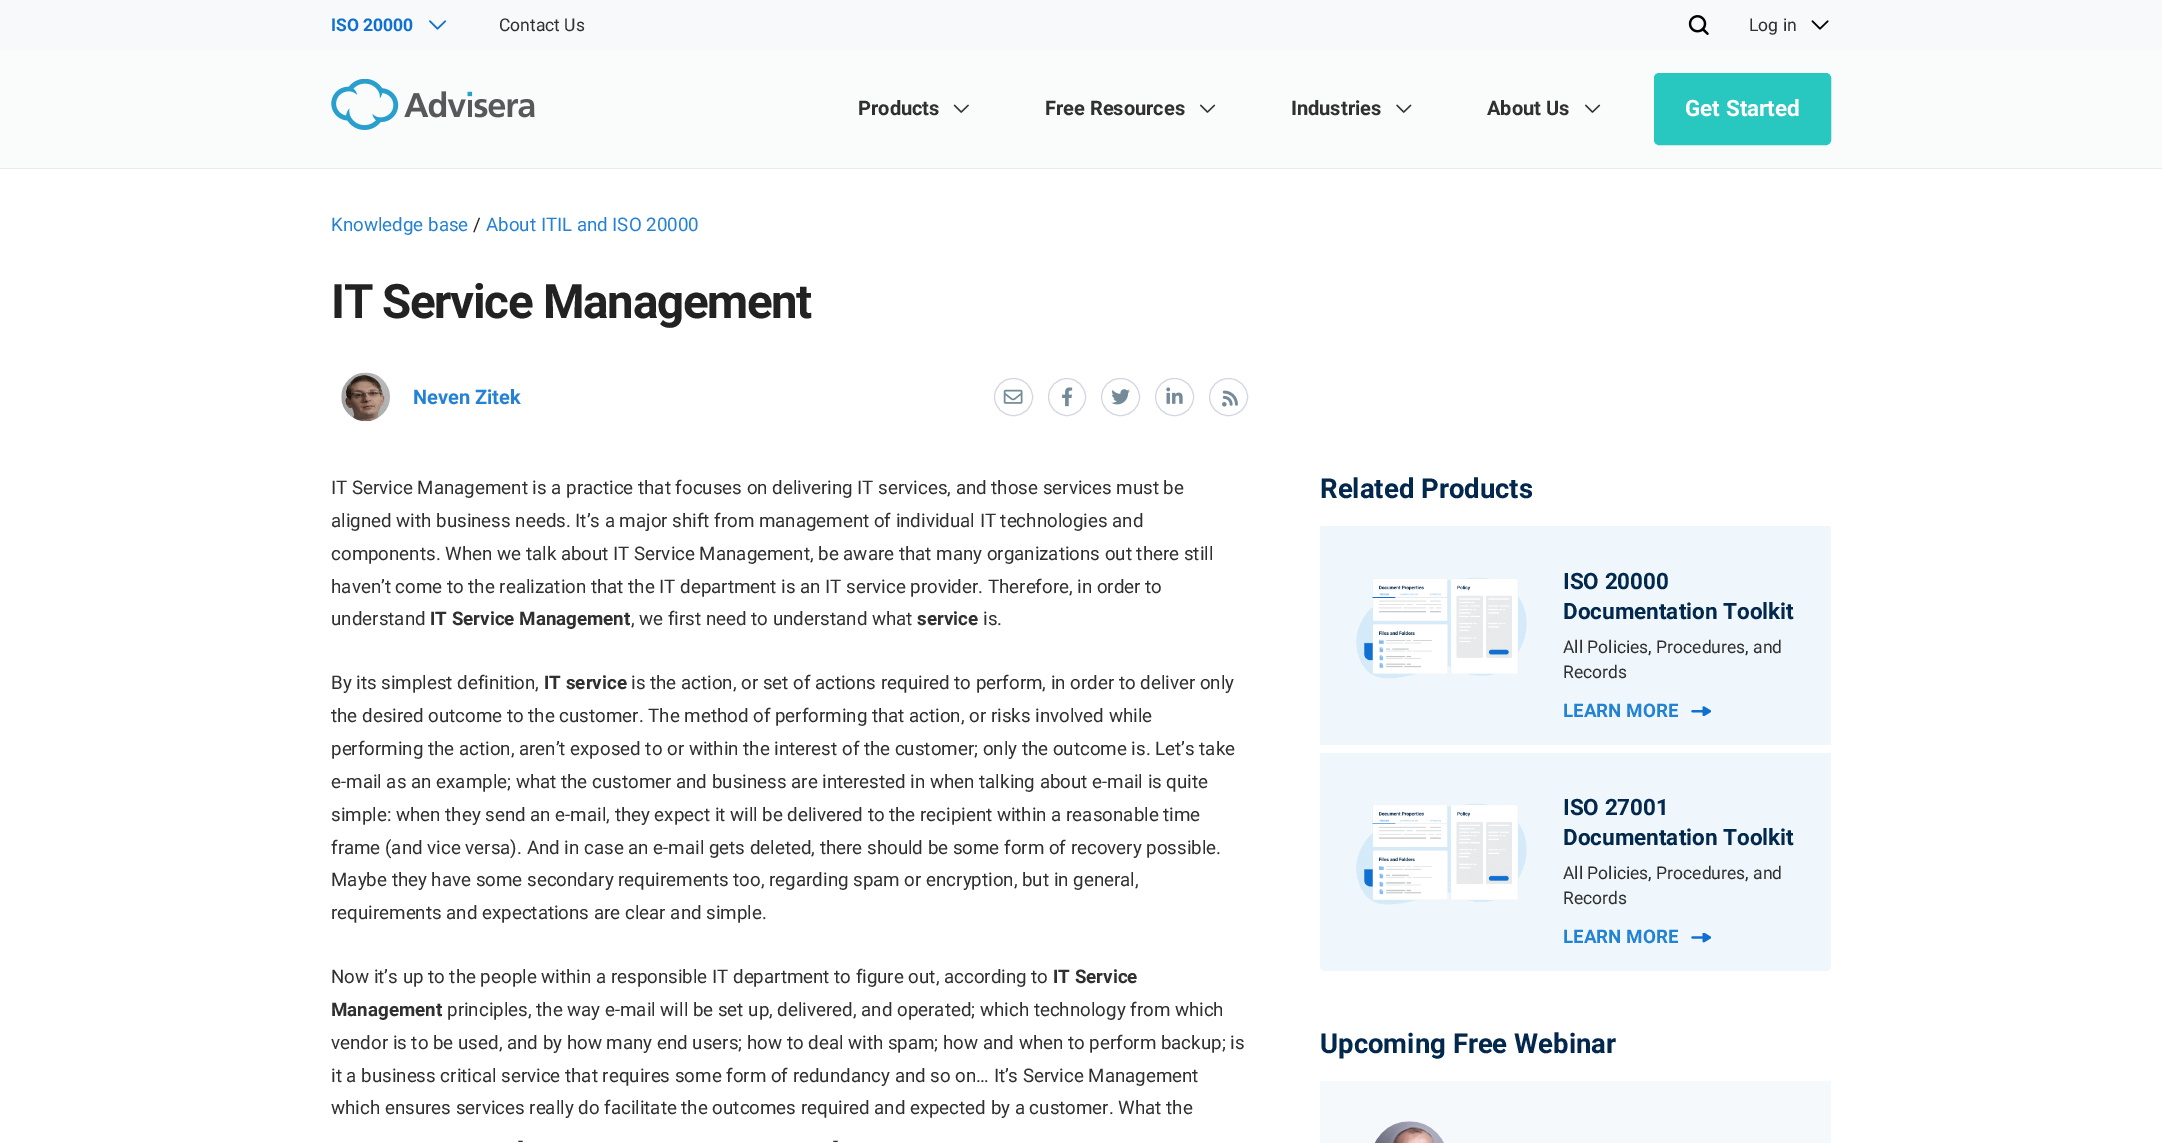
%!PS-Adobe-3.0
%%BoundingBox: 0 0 2162 1143
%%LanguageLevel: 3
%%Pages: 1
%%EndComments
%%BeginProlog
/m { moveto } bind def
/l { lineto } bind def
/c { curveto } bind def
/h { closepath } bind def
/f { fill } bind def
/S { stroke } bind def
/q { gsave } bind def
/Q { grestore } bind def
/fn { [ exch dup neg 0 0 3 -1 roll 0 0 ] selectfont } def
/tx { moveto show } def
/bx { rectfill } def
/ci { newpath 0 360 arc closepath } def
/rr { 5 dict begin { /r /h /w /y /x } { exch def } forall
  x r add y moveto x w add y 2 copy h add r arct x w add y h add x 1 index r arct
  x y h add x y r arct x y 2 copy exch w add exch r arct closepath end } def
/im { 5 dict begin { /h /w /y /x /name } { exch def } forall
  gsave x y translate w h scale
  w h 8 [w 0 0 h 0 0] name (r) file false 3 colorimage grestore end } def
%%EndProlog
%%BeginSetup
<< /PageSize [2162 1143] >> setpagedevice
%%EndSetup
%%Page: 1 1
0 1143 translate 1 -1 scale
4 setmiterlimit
1 setgray
0 0 2162 1143 bx
0.969 0.976 0.98 setrgbcolor
0 0 2162 50 bx
/Roboto-Bold 17.5 fn
0.063 0.439 0.816 setrgbcolor
(ISO 20000) 331 31 tx
(image0.raw) 429 20 18 10 im
/Roboto-Regular 17.5 fn
0.188 setgray
(Contact Us) 499 31 tx
(image1.raw) 1688 15 21 20 im
(Log in) 1749 31 tx
(image2.raw) 1811 20 18 10 im
0.98 0.988 0.988 setrgbcolor
0 50 2162 118 bx
(image3.raw) 331 79 204 51 im
/Roboto-Bold 20 fn
0.188 setgray
(Products) 858 115 tx
(image4.raw) 953 104 16 9 im
(Free Resources) 1045 115 tx
(image5.raw) 1200 104 16 9 im
(Industries) 1291 115 tx
(image6.raw) 1396 104 16 9 im
(About Us) 1487 115 tx
(image5.raw) 1585 104 16 9 im
0.157 0.78 0.753 setrgbcolor
1654.5 73.5 176 71 4.5 rr q f Q
S
/Roboto-Bold 22.5 fn
1 setgray
(Get Started) 1685 116 tx
0.91 0.918 0.922 setrgbcolor
0 168 2162 1 bx
/Roboto-Regular 18.75 fn
0.141 0.51 0.831 setrgbcolor
(Knowledge base) 331 231 tx
0.133 setgray
(/) 473 231 tx
0.141 0.51 0.831 setrgbcolor
(About ITIL and ISO 20000) 486 231 tx
/Roboto-Bold 47.5 fn
0.133 setgray
331 318 m -1.3 0 (IT Service Management) ashow
(image7.raw) 341 372 49 50 im
/Roboto-Bold 20 fn
0.141 0.51 0.831 setrgbcolor
(Neven Zitek) 413 404 tx
0.831 0.839 0.894 setrgbcolor
994.5 378.5 38 37 18.5 rr S
(image8.raw) 1003 389 20 15 im
1067 397 18.5 ci S
(image9.raw) 1062 387 11 20 im
1101.5 378.5 38 37 18.5 rr S
(image10.raw) 1111 389 19 16 im
1155.5 378.5 38 37 18.5 rr S
(image11.raw) 1166 387 17 17 im
1209.5 378.5 38 37 18.5 rr S
(image12.raw) 1222 390 16 17 im
/Roboto-Regular 18.75 fn
0.188 setgray
(IT Service Management is a practice that focuses on delivering IT services, and those services must be) 331 494 tx
(aligned with business needs. It’s a major shift from management of individual IT technologies and) 331 527 tx
(components. When we talk about IT Service Management, be aware that many organizations out there still) 331 560 tx
(haven’t come to the realization that the IT department is an IT service provider. Therefore, in order to) 331 593 tx
(understand) 331 625 tx
/Roboto-Bold 18.75 fn
(IT Service Management) 430 625 tx
/Roboto-Regular 18.75 fn
(, we first need to understand what) 631 625 tx
/Roboto-Bold 18.75 fn
(service) 917 625 tx
/Roboto-Regular 18.75 fn
(is.) 983 625 tx
(By its simplest definition,) 331 689 tx
/Roboto-Bold 18.75 fn
(IT service) 544 689 tx
/Roboto-Regular 18.75 fn
(is the action, or set of actions required to perform, in order to deliver only) 631 689 tx
(the desired outcome to the customer. The method of performing that action, or risks involved while) 331 722 tx
(performing the action, aren’t exposed to or within the interest of the customer; only the outcome is. Let’s take) 331 755 tx
(e-mail as an example; what the customer and business are interested in when talking about e-mail is quite) 331 788 tx
(simple: when they send an e-mail, they expect it will be delivered to the recipient within a reasonable time) 331 821 tx
(frame \(and vice versa\). And in case an e-mail gets deleted, there should be some form of recovery possible.) 331 854 tx
(Maybe they have some secondary requirements too, regarding spam or encryption, but in general,) 331 886 tx
(requirements and expectations are clear and simple.) 331 919 tx
(Now it’s up to the people within a responsible IT department to figure out, according to) 331 983 tx
/Roboto-Bold 18.75 fn
(IT Service) 1053 983 tx
(Management) 331 1016 tx
/Roboto-Regular 18.75 fn
(principles, the way e-mail will be set up, delivered, and operated; which technology from which) 447 1016 tx
(vendor is to be used, and by how many end users; how to deal with spam; how and when to perform backup; is) 331 1049 tx
(it a business critical service that requires some form of redundancy and so on… It’s Service Management) 331 1082 tx
(which ensures services really do facilitate the outcomes required and expected by a customer. What the) 331 1114 tx
(-) 518 1147 tx
(-) 833 1147 tx
/Roboto-Bold 27.5 fn
0.012 0.157 0.302 setrgbcolor
(Related Products) 1320 498 tx
0.937 0.969 0.988 setrgbcolor
1320 526 511 219 bx
(image13.raw) 1356 577 171 102 im
/Roboto-Bold 22.5 fn
0.012 0.157 0.302 setrgbcolor
(ISO 20000) 1563 589 tx
(Documentation Toolkit) 1563 619 tx
/Roboto-Regular 17.5 fn
0.188 setgray
(All Policies, Procedures, and) 1563 653 tx
(Records) 1563 678 tx
/Roboto-Bold 18.75 fn
0.141 0.51 0.831 setrgbcolor
(LEARN MORE) 1563 717 tx
(image14.raw) 1691 706 20 10 im
0.937 0.969 0.988 setrgbcolor
1320 753 m 1831 753 l 1831 966 l 1831 969 1829 971 1826 971 c 1325 971 l 1322 971 1320 969 1320 966 c h f
(image15.raw) 1356 803 171 102 im
/Roboto-Bold 22.5 fn
0.012 0.157 0.302 setrgbcolor
(ISO 27001) 1563 815 tx
(Documentation Toolkit) 1563 845 tx
/Roboto-Regular 17.5 fn
0.188 setgray
(All Policies, Procedures, and) 1563 879 tx
(Records) 1563 904 tx
/Roboto-Bold 18.75 fn
0.141 0.51 0.831 setrgbcolor
(LEARN MORE) 1563 943 tx
(image16.raw) 1691 933 20 10 im
/Roboto-Bold 27.5 fn
0.012 0.157 0.302 setrgbcolor
(Upcoming Free Webinar) 1320 1053 tx
0.961 0.976 0.988 setrgbcolor
1320 1081 511 62 bx
(image17.raw) 1374 1121 70 22 im
showpage
%%EOF
